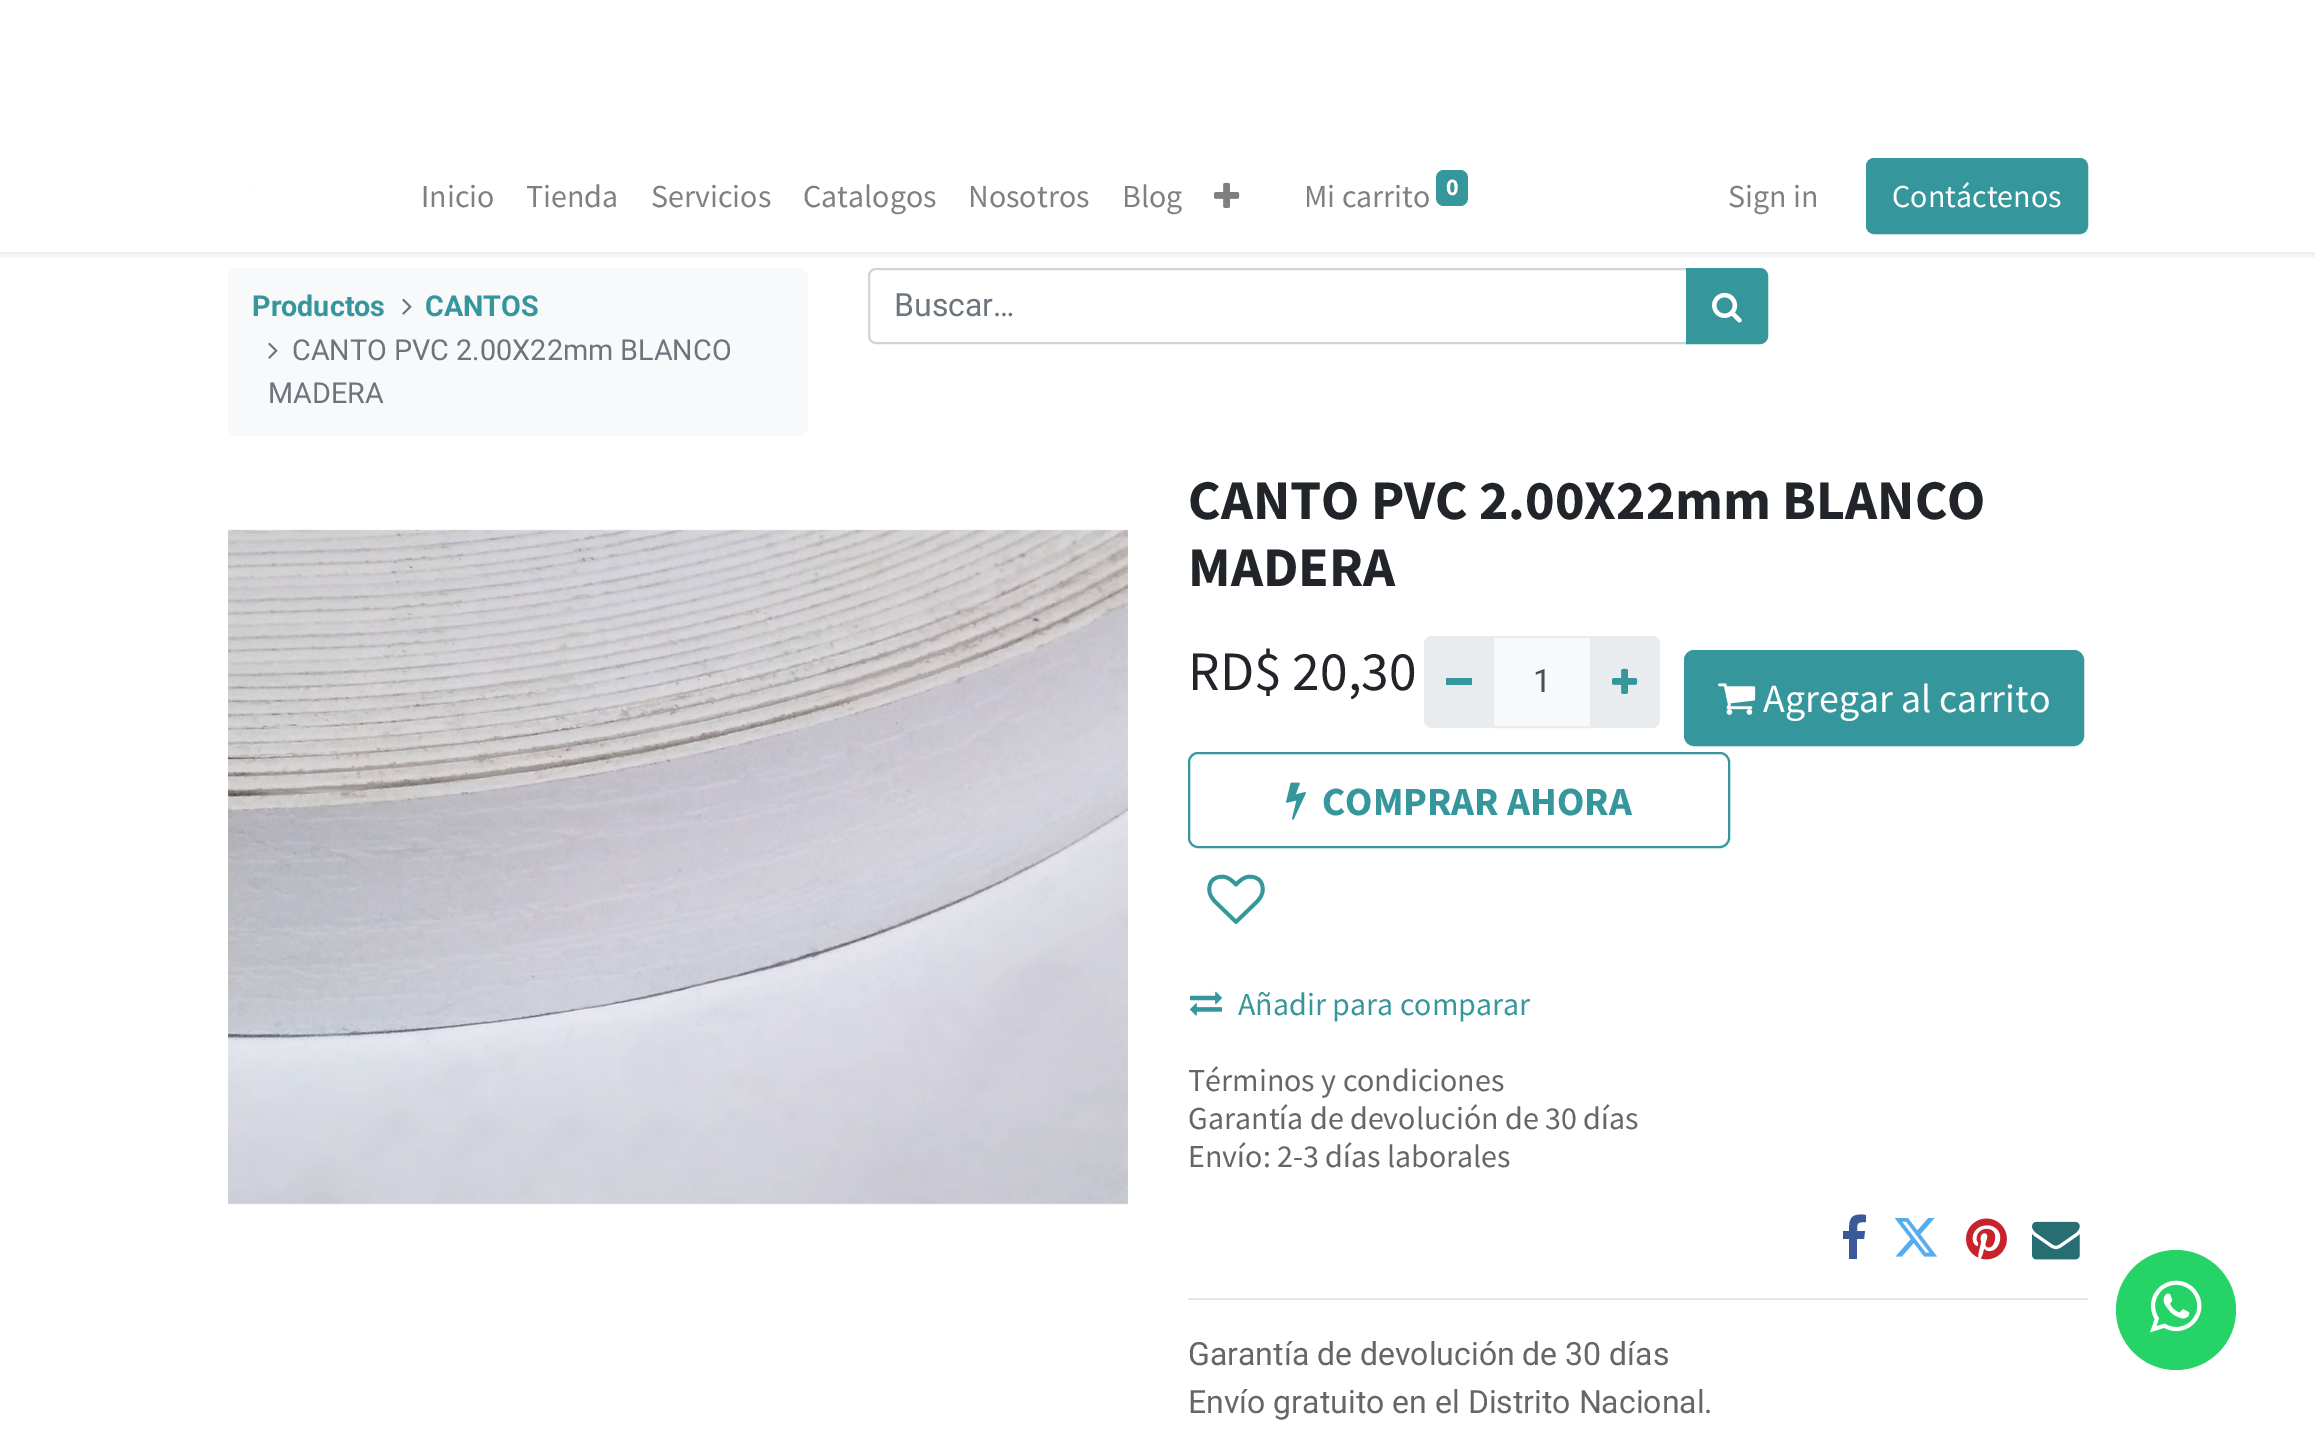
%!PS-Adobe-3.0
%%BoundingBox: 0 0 2315 1449
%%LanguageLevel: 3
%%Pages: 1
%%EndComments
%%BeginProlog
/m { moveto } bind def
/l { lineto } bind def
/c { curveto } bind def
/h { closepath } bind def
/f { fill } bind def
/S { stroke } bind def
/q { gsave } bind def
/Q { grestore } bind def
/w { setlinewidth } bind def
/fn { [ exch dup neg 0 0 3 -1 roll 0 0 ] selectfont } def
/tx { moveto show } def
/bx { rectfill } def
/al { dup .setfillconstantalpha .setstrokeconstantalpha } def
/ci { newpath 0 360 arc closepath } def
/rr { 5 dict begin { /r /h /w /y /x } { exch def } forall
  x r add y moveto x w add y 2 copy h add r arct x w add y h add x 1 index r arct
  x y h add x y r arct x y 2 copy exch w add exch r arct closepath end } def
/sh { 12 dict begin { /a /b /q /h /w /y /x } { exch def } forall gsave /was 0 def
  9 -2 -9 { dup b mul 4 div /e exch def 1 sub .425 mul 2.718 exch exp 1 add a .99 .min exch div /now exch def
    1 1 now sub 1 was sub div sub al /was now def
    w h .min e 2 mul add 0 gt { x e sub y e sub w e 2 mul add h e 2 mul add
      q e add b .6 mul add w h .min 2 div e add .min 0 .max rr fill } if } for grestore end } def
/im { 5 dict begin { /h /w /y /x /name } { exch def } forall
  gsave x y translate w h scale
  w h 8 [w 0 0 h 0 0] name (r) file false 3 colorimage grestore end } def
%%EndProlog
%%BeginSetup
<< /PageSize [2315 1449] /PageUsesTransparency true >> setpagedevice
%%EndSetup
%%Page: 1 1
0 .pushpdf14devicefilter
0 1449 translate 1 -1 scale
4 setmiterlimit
1 setgray
0 0 2315 1449 bx
0.973 0.976 0.98 setrgbcolor
228 268 580 168 8 rr f
0.808 0.831 0.855 setrgbcolor
2 w
876 269 m 1687 269 l 1687 343 l 876 343 l 872 343 869 340 869 336 c 869 276 l 869 272 872 269 876 269 c h S
0.208 0.592 0.612 setrgbcolor
1687 269 m 1760 269 l 1764 269 1767 272 1767 276 c 1767 336 l 1767 340 1764 343 1760 343 c 1687 343 l h q f Q
S
q
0 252 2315 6 rectclip
0 setgray
0 144 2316 112 0 4 0.07 sh
Q
0.98 setgray
251 184 3 2 bx
/SourceSansPro-Regular 32 fn
0.502 setgray
(Inicio) 421 207 tx
(Tienda) 526 207 tx
(Servicios) 651 207 tx
(Catalogos) 803 207 tx
(Nosotros) 968 207 tx
(Blog) 1122 207 tx
(image0.raw) 1214 182 26 26 im
(Mi carrito) 1304 207 tx
0.208 0.592 0.612 setrgbcolor
1436 170 32 36 8 rr f
/SourceSansPro-Bold 24 fn
1 setgray
(0) 1446 195 tx
/SourceSansPro-Regular 32 fn
0.502 setgray
(Sign in) 1728 207 tx
0.208 0.592 0.612 setrgbcolor
1867 159 220 74 7 rr q f Q
S
1 setgray
(Contáctenos) 1892 207 tx
/Roboto-Bold 28.75 fn
0.208 0.592 0.612 setrgbcolor
(Productos) 252 316 tx
(image1.raw) 402 298 10 17 im
(CANTOS) 425 316 tx
(image1.raw) 268 342 10 17 im
/Roboto-Regular 28.75 fn
0.424 0.459 0.49 setrgbcolor
(CANTO PVC 2.00X22mm BLANCO) 292 360 tx
(MADERA) 268 403 tx
/Roboto-Regular 32 fn
(Buscar…) 894 316 tx
(image2.raw) 1712 292 30 31 im
(image3.raw) 228 529 900 676 im
/SourceSansPro-Bold 56 fn
0.129 0.145 0.161 setrgbcolor
(CANTO PVC 2.00X22mm BLANCO) 1188 519 tx
(MADERA) 1188 586 tx
/SourceSansPro-Regular 55.5 fn
(RD$ 20,30) 1188 690 tx
0.973 0.976 0.98 setrgbcolor
1493 637 m 1591 637 l 1591 727 l 1493 727 l h q f Q
0.914 0.925 0.937 setrgbcolor
S
1432 636 m 1494 636 l 1494 728 l 1432 728 l 1427.5 728 1424 724.5 1424 720 c 1424 644 l 1424 639.5 1427.5 636 1432 636 c h f
0.208 0.592 0.612 setrgbcolor
1446 678 26 7 bx
/Roboto-Regular 32 fn
0.286 0.314 0.341 setrgbcolor
(1) 1533 692 tx
0.914 0.925 0.937 setrgbcolor
1590 636 m 1652 636 l 1656.5 636 1660 639.5 1660 644 c 1660 720 l 1660 724.5 1656.5 728 1652 728 c 1590 728 l h f
(image4.raw) 1612 668 26 26 im
0.208 0.592 0.612 setrgbcolor
1685 651 398 94 9 rr q f Q
S
(image5.raw) 1718 683 38 32 im
/SourceSansPro-Regular 40 fn
1 setgray
(Agregar al carrito) 1763 712 tx
0.208 0.592 0.612 setrgbcolor
1189 753 540 94 9 rr S
(image6.raw) 1286 782 20 38 im
/SourceSansPro-Bold 40 fn
(COMPRAR AHORA) 1322 815 tx
(image7.raw) 1207 874 58 50 im
(image8.raw) 1190 991 32 25 im
/SourceSansPro-Regular 32 fn
(Añadir para comparar) 1238 1015 tx
0.392 0.4 0.412 setrgbcolor
(Términos y condiciones) 1188 1091 tx
(Garantía de devolución de 30 días) 1188 1129 tx
(Envío: 2-3 días laborales) 1188 1167 tx
0.231 0.349 0.6 setrgbcolor
1866 1215 m 1866 1222 l 1857 1222 1857 1223 1857 1231 c 1865 1231 l 1864 1239 l 1857 1239 l 1857 1259 l 1849 1259 l 1849 1239 l 1843 1239 l 1843 1231 l 1849 1231 l 1849 1218 1851 1213 1866 1215 c h f
(image9.raw) 1894 1218 43 39 im
(image10.raw) 1966 1218 41 42 im
(image11.raw) 2032 1221 48 39 im
0.902 setgray
1188 1298 900 2 bx
/Roboto-Regular 32 fn
0.392 0.4 0.412 setrgbcolor
(Garantía de devolución de 30 días) 1188 1365 tx
(Envío gratuito en el Distrito Nacional.) 1188 1413 tx
0.145 0.827 0.4 setrgbcolor
2176 1310 60 ci f
(image12.raw) 2150 1280 52 53 im
.poppdf14devicefilter showpage
%%EOF
